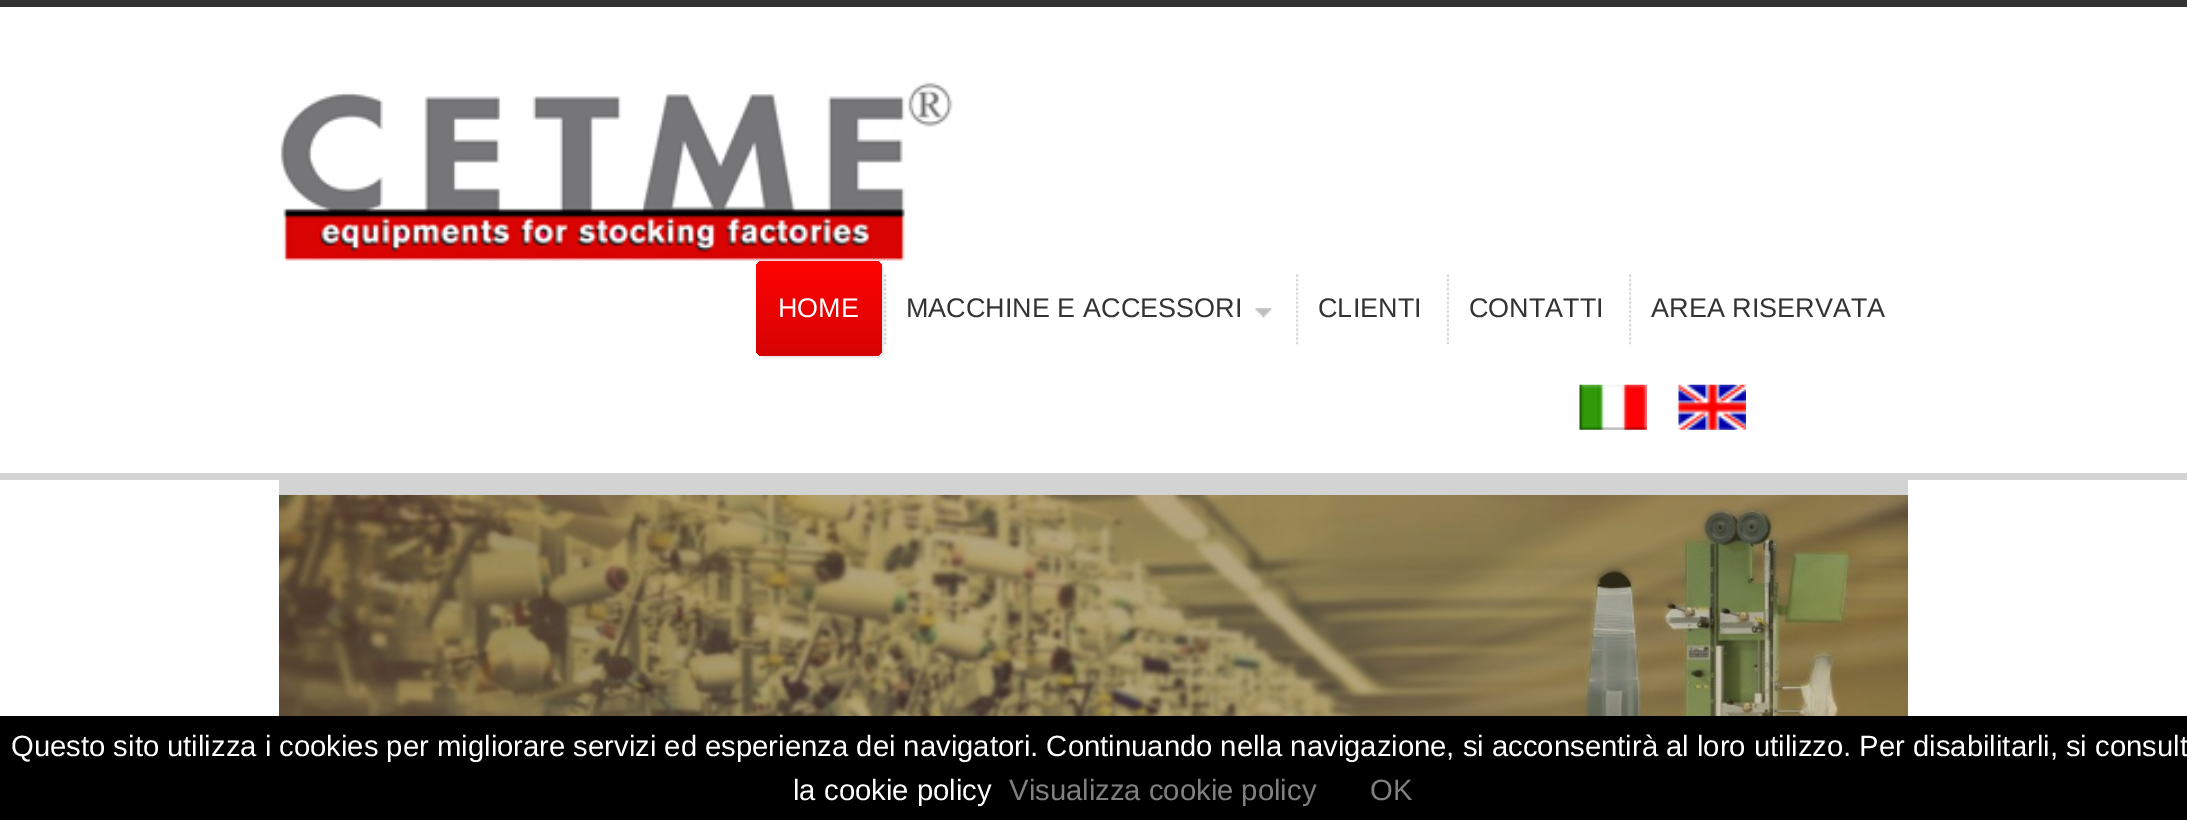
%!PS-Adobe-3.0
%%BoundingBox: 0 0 2187 820
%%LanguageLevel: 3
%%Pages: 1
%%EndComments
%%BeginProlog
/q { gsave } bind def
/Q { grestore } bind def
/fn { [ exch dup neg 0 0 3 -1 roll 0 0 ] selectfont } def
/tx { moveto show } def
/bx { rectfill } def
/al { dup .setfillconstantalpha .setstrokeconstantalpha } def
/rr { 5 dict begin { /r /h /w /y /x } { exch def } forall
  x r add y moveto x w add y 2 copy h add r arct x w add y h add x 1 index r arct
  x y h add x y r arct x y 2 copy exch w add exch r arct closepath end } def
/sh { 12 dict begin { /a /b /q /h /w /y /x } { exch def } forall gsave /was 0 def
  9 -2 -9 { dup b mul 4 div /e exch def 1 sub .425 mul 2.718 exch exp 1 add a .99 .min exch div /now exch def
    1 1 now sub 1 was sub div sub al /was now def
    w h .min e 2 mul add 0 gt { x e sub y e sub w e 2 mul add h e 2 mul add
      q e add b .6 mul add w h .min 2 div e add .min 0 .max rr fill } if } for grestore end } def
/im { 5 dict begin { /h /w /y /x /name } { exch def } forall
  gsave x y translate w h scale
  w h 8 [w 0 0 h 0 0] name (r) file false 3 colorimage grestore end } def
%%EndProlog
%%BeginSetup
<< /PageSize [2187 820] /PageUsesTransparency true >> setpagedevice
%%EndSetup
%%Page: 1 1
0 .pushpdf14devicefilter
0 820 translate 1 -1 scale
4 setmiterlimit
1 setgray
0 0 2187 820 bx
0.2 setgray
0 0 2187 7 bx
0.827 setgray
0 473 2187 7 bx
(image0.raw) 280 82 673 179 im
(image1.raw) 884 274 3 71 im
0 setgray
758 263 126 95 7 1 0.1 sh
q 756 261 126 95 7 rr clip newpath
<< /ShadingType 2 /ColorSpace /DeviceRGB /Coords [819 261 819 356] /Extend [true true] /Function << /FunctionType 2 /Domain [0 1] /C0 [1 0.012 0.008] /C1 [0.835 0.016 0.012] /N 1 >> >> shfill Q
/LiberationSans-Regular 27 fn
1 setgray
(HOME) 778 317 tx
0.2 setgray
(MACCHINE E ACCESSORI) 906 317 tx
(image2.raw) 1255 308 17 10 im
(image3.raw) 1296 274 3 71 im
(CLIENTI) 1318 317 tx
(image4.raw) 1446 274 3 71 im
(CONTATTI) 1469 317 tx
(image3.raw) 1629 274 3 71 im
(AREA RISERVATA) 1651 317 tx
(image5.raw) 1579 384 68 46 im
(image6.raw) 1678 384 68 46 im
0.827 setgray
279 480 1629 15 bx
(image7.raw) 279 495 1629 221 im
0 setgray
0 716 2187 104 bx
/LiberationSans-Regular 29.25 fn
1 setgray
(Questo sito utilizza i cookies per migliorare servizi ed esperienza dei navigatori. Continuando nella navigazione, si acconsentirà al loro utilizzo. Per disabilitarli, si consult) 11 756 tx
(la cookie policy) 793 800 tx
0.502 setgray
(Visualizza cookie policy) 1009 800 tx
(OK) 1370 800 tx
.poppdf14devicefilter showpage
%%EOF
